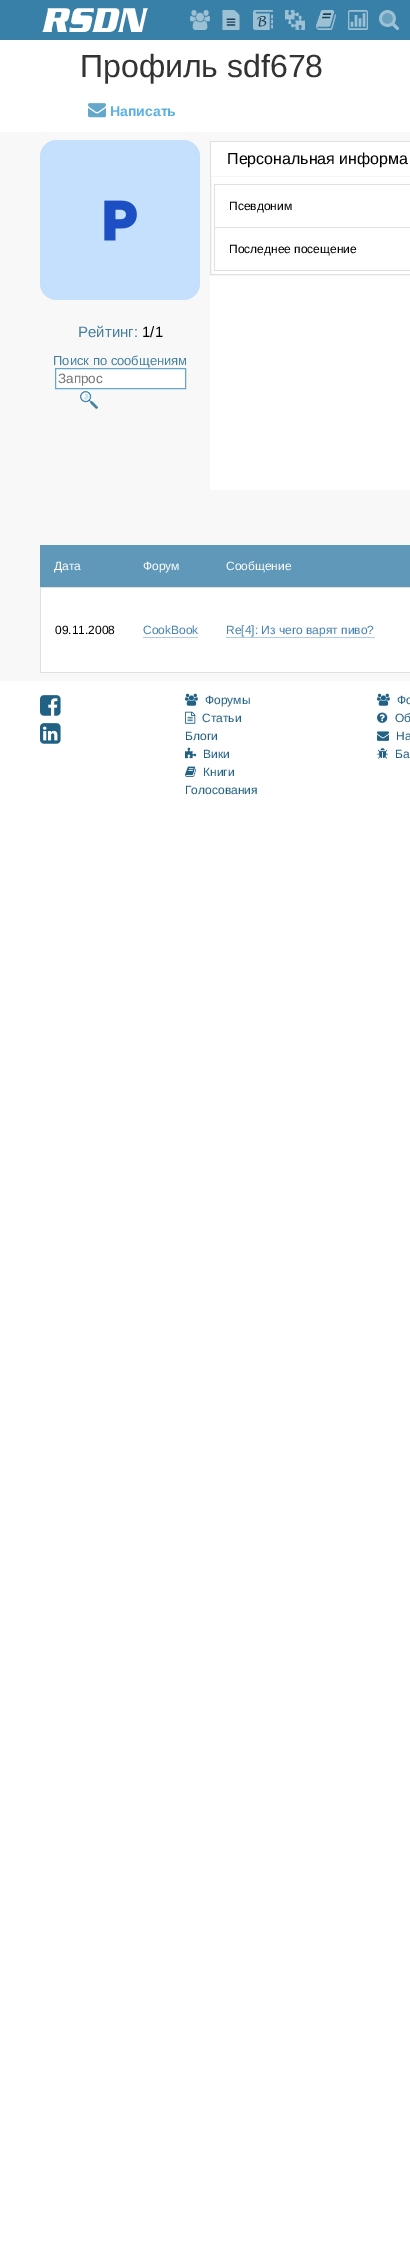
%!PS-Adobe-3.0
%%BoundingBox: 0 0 410 2267
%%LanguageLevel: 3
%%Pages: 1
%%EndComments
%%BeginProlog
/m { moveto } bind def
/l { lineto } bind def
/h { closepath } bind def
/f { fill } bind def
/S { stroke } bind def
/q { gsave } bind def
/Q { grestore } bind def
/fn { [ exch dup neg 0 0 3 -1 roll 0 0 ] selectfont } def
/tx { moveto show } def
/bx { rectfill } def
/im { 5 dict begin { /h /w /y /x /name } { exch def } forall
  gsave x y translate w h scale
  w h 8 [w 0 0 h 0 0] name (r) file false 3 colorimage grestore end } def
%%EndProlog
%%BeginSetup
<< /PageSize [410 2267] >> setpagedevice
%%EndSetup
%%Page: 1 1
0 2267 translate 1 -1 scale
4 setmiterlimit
1 setgray
0 0 410 2267 bx
0.224 0.502 0.659 setrgbcolor
0 0 410 40 bx
(image0.raw) 42 8 106 24 im
(image1.raw) 190 10 20 20 im
(image2.raw) 222 10 18 20 im
(image3.raw) 253 10 20 20 im
(image4.raw) 285 10 20 20 im
(image5.raw) 316 10 20 20 im
(image6.raw) 348 10 20 20 im
(image7.raw) 379 10 20 20 im
/LiberationSans-Regular 32 fn
0.2 setgray
(Профиль sdf678) 80 77 tx
(image8.raw) 88 103 18 15 im
/LiberationSans-Bold 14 fn
0.357 0.698 0.886 setrgbcolor
(Написать) 110 116 tx
0.973 setgray
0 132 410 549 bx
1 setgray
210 176 200 314 bx
0.878 setgray
210.5 175.5 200 99 rectstroke
1 setgray
211 142 199 34 bx
0.878 setgray
210 141 200 1 bx
210 141 1 35 bx
/LiberationSans-Regular 16 fn
0 setgray
(Персональная информа) 227 164 tx
0.878 setgray
214 184 196 1 bx
214 184 1 43 bx
/LiberationSans-Regular 12 fn
0 setgray
(Псевдоним) 229 210 tx
0.878 setgray
214 227 196 1 bx
214 270 196 1 bx
214 227 1 44 bx
0 setgray
(Последнее посещение) 229 253 tx
(image9.raw) 40 140 160 160 im
/LiberationSans-Regular 15 fn
0.271 0.502 0.627 setrgbcolor
(Рейтинг:) 78 337 tx
0 setgray
(1/1) 142 337 tx
/LiberationSans-Regular 13 fn
0.271 0.502 0.627 setrgbcolor
(Поиск по сообщениям) 53 365 tx
1 setgray
55.5 368.5 m 185.5 368.5 l 185.5 388.5 l 55.5 388.5 l h q f Q
0.396 0.655 0.796 setrgbcolor
S
/LiberationSans-Regular 13.5 fn
0.459 setgray
(Запрос) 58 383 tx
(image10.raw) 80 391 18 18 im
0.373 0.596 0.722 setrgbcolor
40 545 370 42 bx
/LiberationSans-Regular 12 fn
1 setgray
(Дата) 54 570 tx
(Форум) 143 570 tx
(Сообщение) 226 570 tx
41 588 369 84 bx
0.878 setgray
40 587 370 1 bx
40 672 370 1 bx
40 587 1 86 bx
0 setgray
(09.11.2008) 55 634 tx
0.275 0.51 0.706 setrgbcolor
(CookBook) 143 634 tx
0.71 0.804 0.882 setrgbcolor
143 637 55 1 bx
0.275 0.51 0.706 setrgbcolor
(Re[4]: Из чего варят пиво?) 226 634 tx
0.71 0.804 0.882 setrgbcolor
226 637 149 1 bx
(image11.raw) 40 695 21 21 im
(image12.raw) 40 723 21 21 im
(image13.raw) 185 693 13 13 im
0.129 0.38 0.518 setrgbcolor
(Форумы) 205 704 tx
(image14.raw) 185 711 11 13 im
(Статьи) 202 722 tx
(Блоги) 185 740 tx
(image15.raw) 185 747 12 12 im
(Вики) 203 758 tx
(image16.raw) 185 766 12 11 im
(Книги) 203 776 tx
(Голосования) 185 794 tx
(image13.raw) 377 693 13 13 im
(Фо) 397 704 tx
(image17.raw) 377 712 11 11 im
(Об) 395 722 tx
(image18.raw) 377 731 12 10 im
(На) 396 740 tx
(image19.raw) 377 748 11 11 im
(Ба) 395 758 tx
showpage
%%EOF
